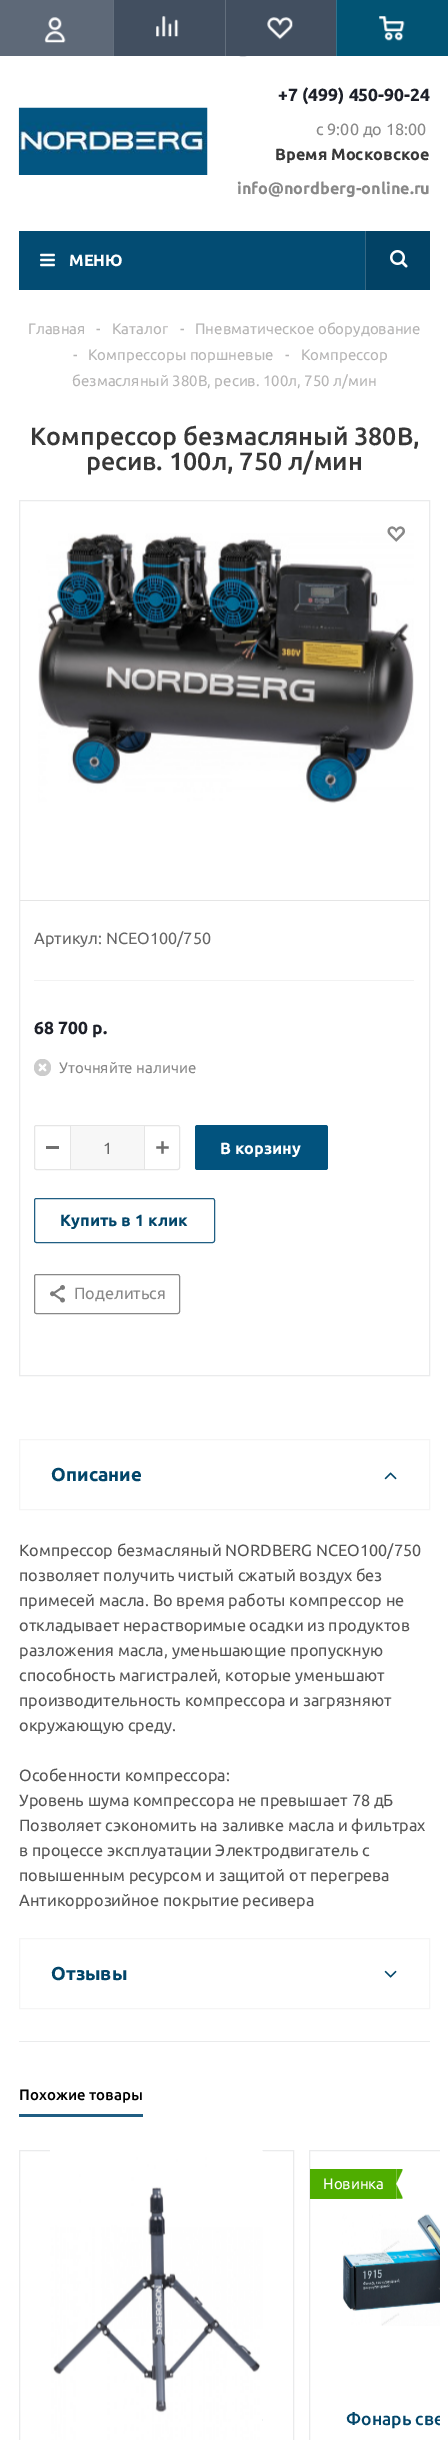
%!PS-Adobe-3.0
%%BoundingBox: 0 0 448 2440
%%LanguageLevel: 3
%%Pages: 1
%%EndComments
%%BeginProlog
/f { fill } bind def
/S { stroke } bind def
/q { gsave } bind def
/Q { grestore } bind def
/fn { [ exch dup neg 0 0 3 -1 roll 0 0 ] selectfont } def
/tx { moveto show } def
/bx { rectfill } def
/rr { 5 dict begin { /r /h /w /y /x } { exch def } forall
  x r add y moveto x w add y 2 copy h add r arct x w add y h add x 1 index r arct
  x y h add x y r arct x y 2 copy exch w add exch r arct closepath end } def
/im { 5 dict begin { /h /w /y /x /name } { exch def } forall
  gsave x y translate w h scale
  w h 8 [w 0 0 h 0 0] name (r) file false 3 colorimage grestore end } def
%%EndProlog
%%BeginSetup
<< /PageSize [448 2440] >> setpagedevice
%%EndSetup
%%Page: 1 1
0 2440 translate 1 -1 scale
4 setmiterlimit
1 setgray
0 0 448 2440 bx
(image0.raw) 18 107 190 68 im
(image1.raw) 239 56 9 1 im
0.259 0.31 0.376 setrgbcolor
114 0 222 56 bx
0.369 0.412 0.471 setrgbcolor
0 0 113 56 bx
(image2.raw) 44 17 22 26 im
0.388 0.435 0.49 setrgbcolor
113 0 1 56 bx
(image3.raw) 156 16 23 21 im
225 0 1 56 bx
(image4.raw) 267 17 26 23 im
0.008 0.329 0.455 setrgbcolor
337 0 111 56 bx
0.188 0.451 0.553 setrgbcolor
336 0 1 56 bx
(image5.raw) 379 16 26 25 im
/Ubuntu-Bold 17.5 fn
0.114 0.125 0.161 setrgbcolor
(+7 \(499\) 450-90-24) 278 101 tx
/Ubuntu-Regular 16.25 fn
0.533 setgray
(с 9:00 до 18:00) 316 135 tx
/Ubuntu-Bold 16.25 fn
0.22 setgray
(Время Московское) 275 160 tx
0.533 setgray
(info@nordberg-online.ru) 237 194 tx
0.012 0.298 0.451 setrgbcolor
19 231 346 59 bx
(image6.raw) 40 253 15 14 im
1 setgray
(МЕНЮ) 69 266 tx
0.008 0.259 0.396 setrgbcolor
366 231 64 59 bx
0.208 0.408 0.518 setrgbcolor
365 231 1 59 bx
(image7.raw) 390 250 18 18 im
/Ubuntu-Regular 15 fn
0.714 0.71 0.71 setrgbcolor
(Главная) 28 334 tx
(-) 96 334 tx
(Каталог) 112 334 tx
(-) 180 334 tx
(Пневматическое оборудование) 195 334 tx
(-) 73 360 tx
(Компрессоры поршневые) 88 360 tx
(-) 285 360 tx
(Компрессор) 301 360 tx
(безмасляный 380В, ресив. 100л, 750 л/мин) 72 386 tx
/Ubuntu-Medium 25 fn
0.22 setgray
(Компрессор безмасляный 380В,) 30 445 tx
(ресив. 100л, 750 л/мин) 86 470 tx
0.918 0.922 0.925 setrgbcolor
19.5 500.5 410 875 rectstroke
(image9.raw) 38 533 376 271 im
(image8.raw) 387 526 18 16 im
0.898 setgray
20 900 409 1 bx
0.949 setgray
34 980 380 1 bx
/Ubuntu-Regular 16.25 fn
0.4 setgray
(Артикул: NCEO100/750) 34 944 tx
/Ubuntu-Bold 17.5 fn
0.114 0.125 0.161 setrgbcolor
(68 700 р.) 34 1034 tx
(image10.raw) 34 1059 17 17 im
/Ubuntu-Regular 15 fn
0.533 setgray
(Уточняйте наличие) 59 1073 tx
0.898 setgray
34.5 1125.5 145 44 2 rr S
0.439 setgray
46 1146 13 3 bx
0.969 setgray
71 1126 73 43 bx
0.898 setgray
144 1126 1 43 bx
70 1126 1 43 bx
/Ubuntu-Regular 16.25 fn
0.4 setgray
(1) 103 1154 tx
(image11.raw) 156 1141 13 13 im
0.008 0.325 0.494 setrgbcolor
195 1125 133 45 2.5 rr f
/Ubuntu-Bold 16.25 fn
1 setgray
(В корзину) 220 1154 tx
0.125 0.369 0.514 setrgbcolor
34.5 1198.5 180 44 2 rr S
0.008 0.275 0.416 setrgbcolor
(Купить в 1 клик) 60 1226 tx
0.533 setgray
34.5 1274.5 145 39 2 rr S
(image12.raw) 50 1285 15 18 im
/Ubuntu-Regular 16.25 fn
(Поделиться) 74 1299 tx
0.961 setgray
19.5 1439.5 410 70 rectstroke
/Ubuntu-Bold 18.75 fn
0.008 0.275 0.416 setrgbcolor
(Описание) 51 1481 tx
(image13.raw) 384 1472 13 8 im
/Ubuntu-Regular 16.25 fn
0.333 setgray
(Компрессор безмасляный NORDBERG NCEO100/750) 19 1556 tx
(позволяет получить чистый сжатый воздух без) 19 1581 tx
(примесей масла. Во время работы компрессор не) 19 1606 tx
(откладывает нерастворимые осадки из продуктов) 19 1631 tx
(разложения масла, уменьшающие пропускную) 19 1656 tx
(способность магистралей, которые уменьшают) 19 1681 tx
(производительность компрессора и загрязняют) 19 1706 tx
(окружающую среду.) 19 1731 tx
(Особенности компрессора:) 19 1781 tx
(Уровень шума компрессора не превышает 78 дБ) 19 1806 tx
(Позволяет сэкономить на заливке масла и фильтрах) 19 1831 tx
(в процессе эксплуатации Электродвигатель с) 19 1856 tx
(повышенным ресурсом и защитой от перегрева) 19 1881 tx
(Антикоррозийное покрытие ресивера) 19 1906 tx
0.961 setgray
19.5 1938.5 410 70 rectstroke
/Ubuntu-Bold 18.75 fn
0.008 0.275 0.416 setrgbcolor
(Отзывы) 51 1980 tx
(image14.raw) 384 1970 13 8 im
0.918 0.922 0.925 setrgbcolor
19 2041 411 1 bx
0.125 0.369 0.514 setrgbcolor
19 2114 124 3 bx
/Ubuntu-Medium 15 fn
0 setgray
(Похожие товары) 19 2100 tx
0.918 0.922 0.925 setrgbcolor
19.5 2150.5 274 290 rectstroke
(image15.raw) 50 2150 213 290 im
q
13 2118 427 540 rectclip
309.5 2150.5 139 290 rectstroke
Q
0.31 0.678 0 setrgbcolor
310 2169 86 30 bx
/Ubuntu-Regular 15 fn
1 setgray
(Новинка) 323 2189 tx
(image16.raw) 396 2169 7 30 im
(image17.raw) 342 2214 98 112 im
q
335 2406 105 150 rectclip
/Ubuntu-Medium 17.5 fn
0.008 0.275 0.416 setrgbcolor
(Фонарь све) 346 2425 tx
Q
showpage
%%EOF
